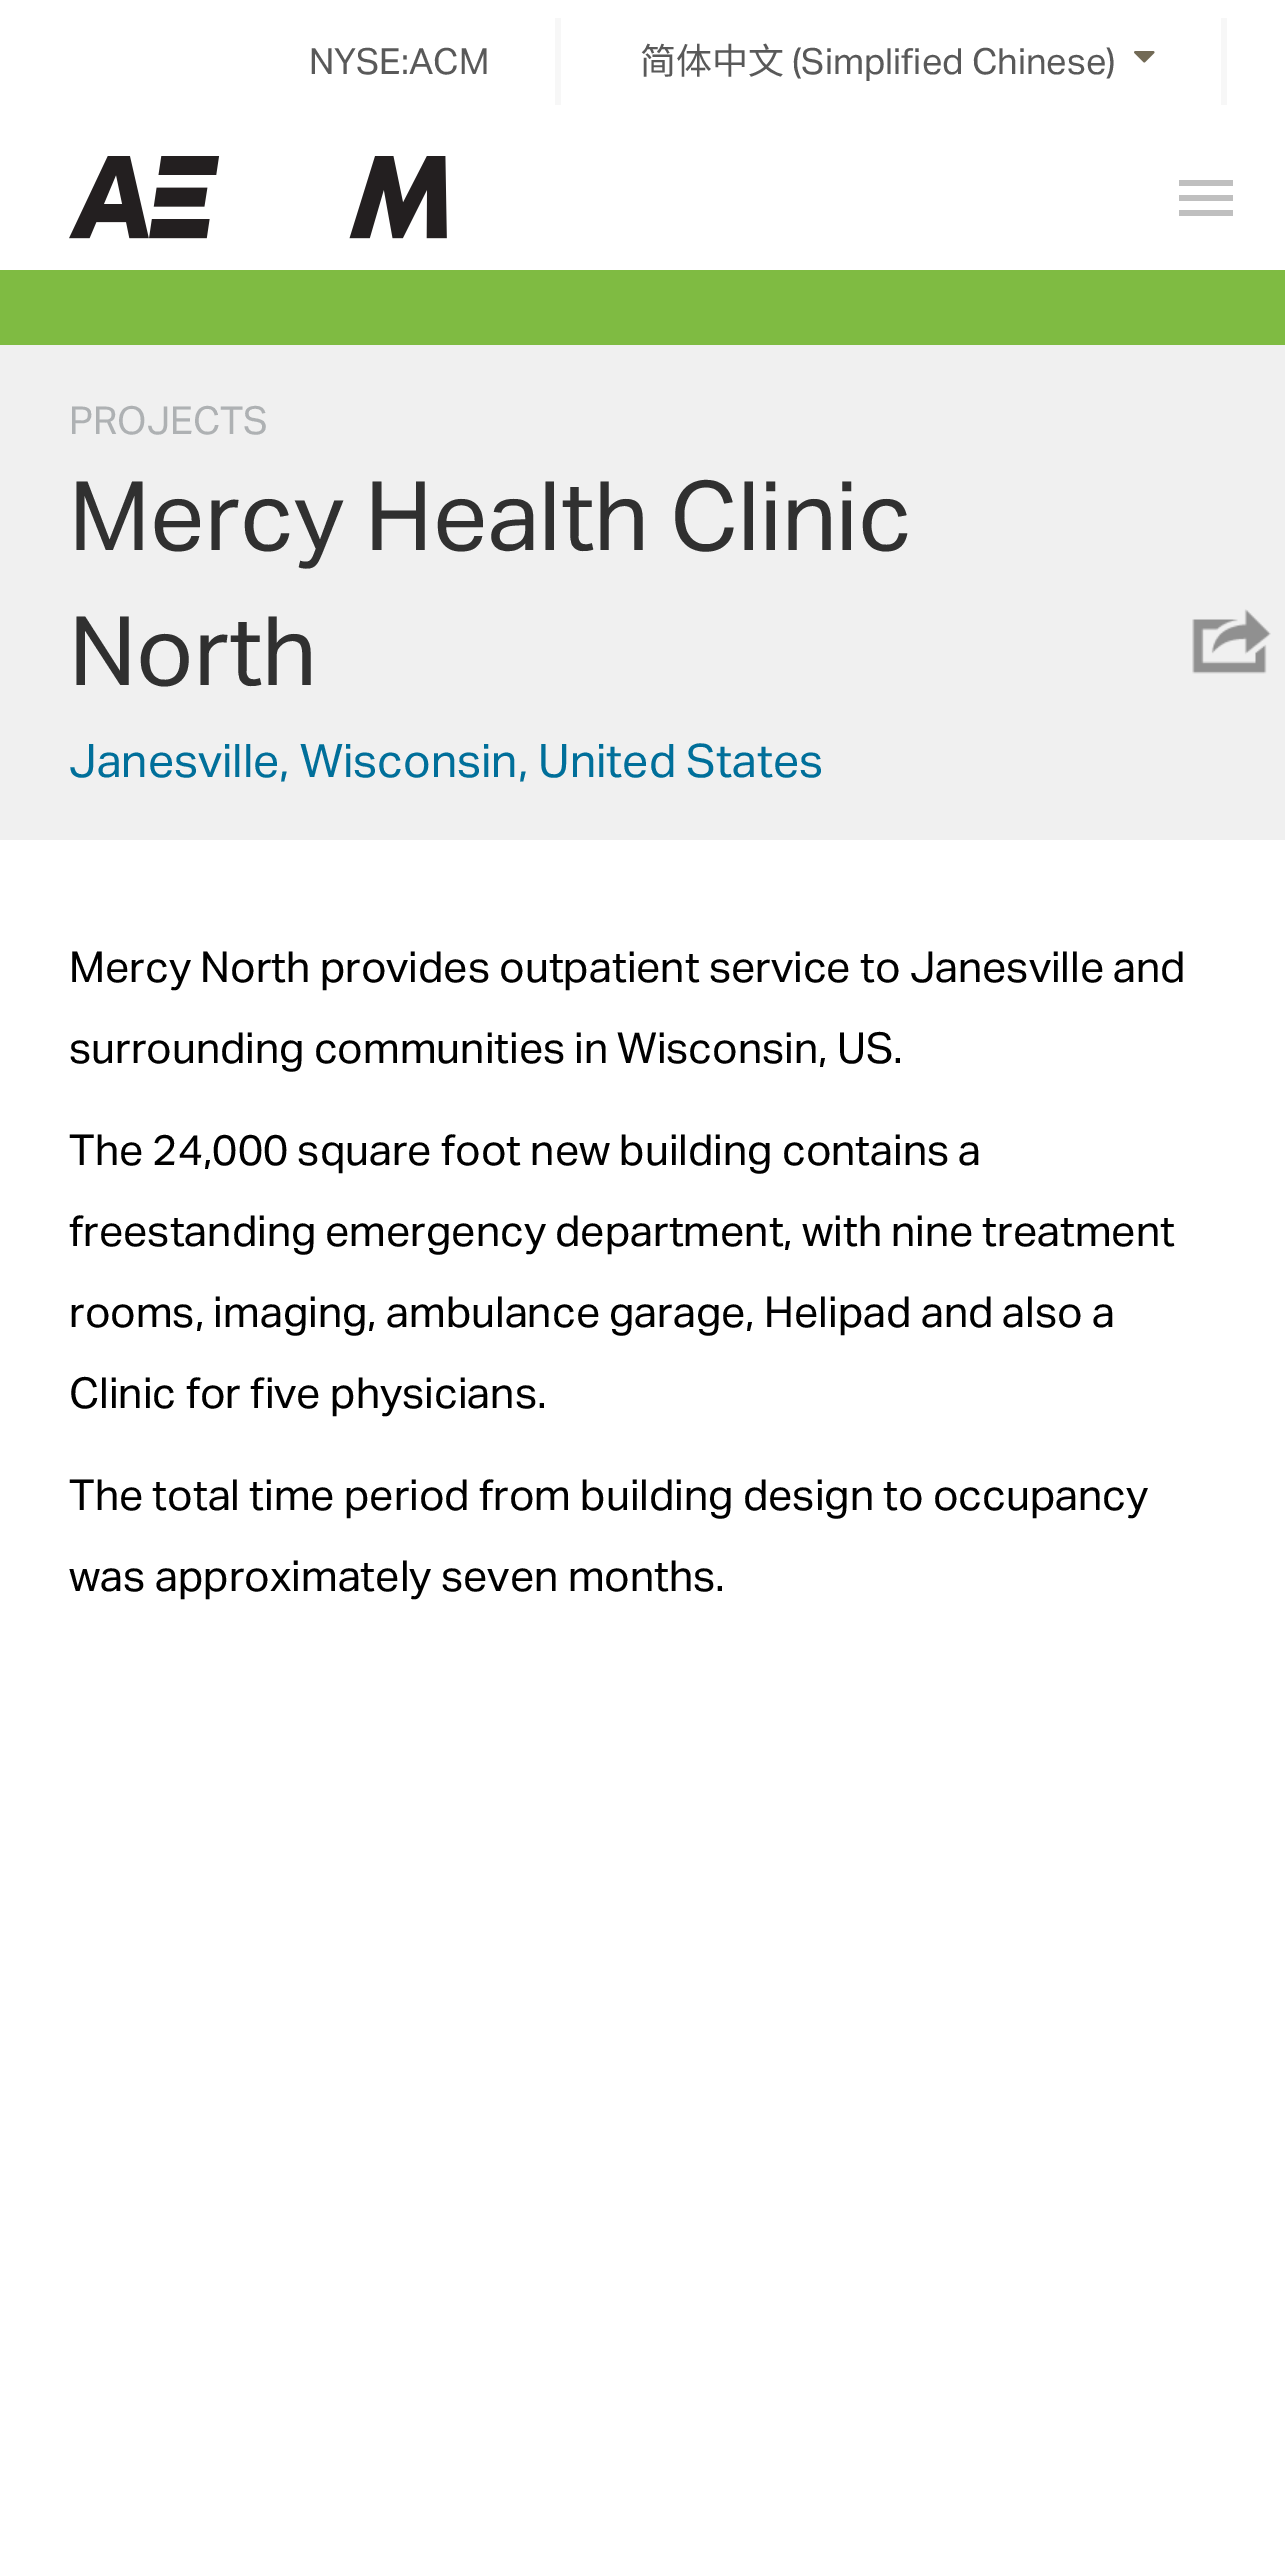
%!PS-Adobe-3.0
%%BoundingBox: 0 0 1285 2571
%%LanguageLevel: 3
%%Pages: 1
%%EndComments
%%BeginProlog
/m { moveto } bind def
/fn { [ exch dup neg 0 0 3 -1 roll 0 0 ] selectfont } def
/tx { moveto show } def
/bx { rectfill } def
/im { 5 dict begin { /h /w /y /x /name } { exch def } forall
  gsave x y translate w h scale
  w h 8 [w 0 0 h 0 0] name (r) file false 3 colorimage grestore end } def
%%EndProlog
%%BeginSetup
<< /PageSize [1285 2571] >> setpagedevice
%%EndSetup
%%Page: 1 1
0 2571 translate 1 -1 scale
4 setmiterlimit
1 setgray
0 0 1285 2571 bx
0.969 setgray
555 18 6 87 bx
/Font-Regular 36 fn
0.349 setgray
(NYSE:ACM) 309 74 tx
0.969 setgray
1221 18 6 87 bx
/NotoSansCJKSC-Regular 36 fn
0.349 setgray
(简体中文) 640 74 tx
/Font-Regular 36 fn
(\(Simplified Chinese\)) 792 74 tx
(image0.raw) 1134 51 21 12 im
(image1.raw) 69 156 378 83 im
0.749 setgray
1179 180 54 6 bx
1179 195 54 6 bx
1179 210 54 6 bx
0.941 setgray
0 345 1285 495 bx
0.498 0.733 0.259 setrgbcolor
0 270 1285 75 bx
/Font-Regular 38.5 fn
0.682 0.694 0.702 setrgbcolor
(PROJECTS) 69 434 tx
/Font-Regular 96 fn
0.188 setgray
(Mercy Health Clinic) 69 550 tx
(North) 69 685 tx
(image2.raw) 1192 609 79 65 im
/Font-Regular 46.1 fn
0 0.435 0.604 setrgbcolor
(Janesville, Wisconsin, United States) 69 777 tx
/Font-Regular 42.6 fn
0 setgray
69 982 m -0.25 0 32 (Mercy North provides outpatient service to Janesville and) widthshow
69 1063 m -0.5 0 32 (surrounding communities in Wisconsin, US.) widthshow
69 1165 m -0.25 0 32 (The 24,000 square foot new building contains a) widthshow
69 1246 m -0.5 0 32 (freestanding emergency department, with nine treatment) widthshow
69 1327 m -0.25 0 32 (rooms, imaging, ambulance garage, Helipad and also a) widthshow
(Clinic for five physicians.) 69 1408 tx
69 1510 m -0.25 0 32 (The total time period from building design to occupancy) widthshow
(was approximately seven months.) 69 1591 tx
showpage
%%EOF
